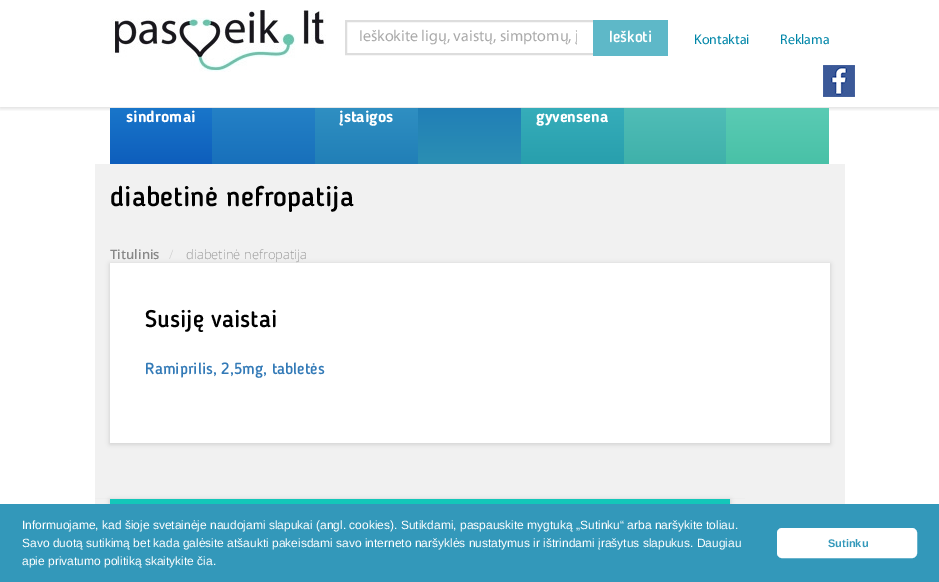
%!PS-Adobe-3.0
%%BoundingBox: 0 0 939 582
%%LanguageLevel: 3
%%Pages: 1
%%EndComments
%%BeginProlog
/m { moveto } bind def
/l { lineto } bind def
/h { closepath } bind def
/f { fill } bind def
/S { stroke } bind def
/q { gsave } bind def
/Q { grestore } bind def
/w { setlinewidth } bind def
/fn { [ exch dup neg 0 0 3 -1 roll 0 0 ] selectfont } def
/tx { moveto show } def
/bx { rectfill } def
/al { dup .setfillconstantalpha .setstrokeconstantalpha } def
/rr { 5 dict begin { /r /h /w /y /x } { exch def } forall
  x r add y moveto x w add y 2 copy h add r arct x w add y h add x 1 index r arct
  x y h add x y r arct x y 2 copy exch w add exch r arct closepath end } def
/sh { 12 dict begin { /a /b /q /h /w /y /x } { exch def } forall gsave /was 0 def
  9 -2 -9 { dup b mul 4 div /e exch def 1 sub .425 mul 2.718 exch exp 1 add a .99 .min exch div /now exch def
    1 1 now sub 1 was sub div sub al /was now def
    w h .min e 2 mul add 0 gt { x e sub y e sub w e 2 mul add h e 2 mul add
      q e add b .6 mul add w h .min 2 div e add .min 0 .max rr fill } if } for grestore end } def
/im { 5 dict begin { /h /w /y /x /name } { exch def } forall
  gsave x y translate w h scale
  w h 8 [w 0 0 h 0 0] name (r) file false 3 colorimage grestore end } def
%%EndProlog
%%BeginSetup
<< /PageSize [939 582] /PageUsesTransparency true >> setpagedevice
%%EndSetup
%%Page: 1 1
0 .pushpdf14devicefilter
0 582 translate 1 -1 scale
4 setmiterlimit
1 setgray
0 0 939 582 bx
q
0 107 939 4 rectclip
0 setgray
0 1 939 107 0 2.5 0.15 sh
Q
(image0.raw) 111 10 215 62 im
0.867 setgray
2 w
346 21 248 33 rectstroke
q
359 28 218 19 rectclip
/Myriad-Regular 16 fn
0.667 setgray
(Ieškokite ligų, vaistų, simptomų, į) 359 41 tx
Q
0.369 0.722 0.784 setrgbcolor
593 20 75 36 bx
/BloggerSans-Medium 16 fn
1 setgray
(Ieškoti) 609 42 tx
/Myriad-Regular 14 fn
0 0.525 0.659 setrgbcolor
(Kontaktai) 694 44 tx
(Reklama) 780 44 tx
(image1.raw) 823 65 32 32 im
q 110 108 m 212 108 l 212 164 l 110 164 l h clip newpath
<< /ShadingType 2 /ColorSpace /DeviceRGB /Coords [161 108 161 164] /Extend [true true] /Function << /FunctionType 2 /Domain [0 1] /C0 [0.098 0.463 0.792] /C1 [0.055 0.369 0.737] /N 1 >> >> shfill Q
/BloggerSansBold-Bold 16 fn
1 setgray
(sindromai) 126 122 tx
q 212 108 m 315 108 l 315 164 l 212 164 l h clip newpath
<< /ShadingType 2 /ColorSpace /DeviceRGB /Coords [264 108 264 164] /Extend [true true] /Function << /FunctionType 2 /Domain [0 1] /C0 [0.141 0.506 0.776] /C1 [0.094 0.439 0.733] /N 1 >> >> shfill Q
q 315 108 m 418 108 l 418 164 l 315 164 l h clip newpath
<< /ShadingType 2 /ColorSpace /DeviceRGB /Coords [367 108 367 164] /Extend [true true] /Function << /FunctionType 2 /Domain [0 1] /C0 [0.184 0.561 0.761] /C1 [0.129 0.498 0.718] /N 1 >> >> shfill Q
(įstaigos) 339 122 tx
q 418 108 m 521 108 l 521 164 l 418 164 l h clip newpath
<< /ShadingType 2 /ColorSpace /DeviceRGB /Coords [470 108 470 164] /Extend [true true] /Function << /FunctionType 2 /Domain [0 1] /C0 [0.129 0.498 0.718] /C1 [0.169 0.561 0.702] /N 1 >> >> shfill Q
q 521 108 m 624 108 l 624 164 l 521 164 l h clip newpath
<< /ShadingType 2 /ColorSpace /DeviceRGB /Coords [573 108 573 164] /Extend [true true] /Function << /FunctionType 2 /Domain [0 1] /C0 [0.212 0.678 0.729] /C1 [0.157 0.624 0.678] /N 1 >> >> shfill Q
(gyvensena) 536 122 tx
q 624 108 m 726 108 l 726 164 l 624 164 l h clip newpath
<< /ShadingType 2 /ColorSpace /DeviceRGB /Coords [675 108 675 164] /Extend [true true] /Function << /FunctionType 2 /Domain [0 1] /C0 [0.314 0.741 0.718] /C1 [0.247 0.694 0.667] /N 1 >> >> shfill Q
q 726 108 m 829 108 l 829 164 l 726 164 l h clip newpath
<< /ShadingType 2 /ColorSpace /DeviceRGB /Coords [778 108 778 164] /Extend [true true] /Function << /FunctionType 2 /Domain [0 1] /C0 [0.353 0.796 0.706] /C1 [0.286 0.757 0.655] /N 1 >> >> shfill Q
0.945 setgray
95 164 750 340 bx
/BloggerSans-Medium 28 fn
0 setgray
(diabetinė nefropatija) 110 206 tx
/OpenSans-SemiBold 13 fn
0.533 setgray
(Titulinis) 110 259 tx
/OpenSans-Light 13 fn
0.8 setgray
(/) 169 259 tx
0.6 setgray
(diabetinė nefropatija) 186 259 tx
0 setgray
110 264 720 180 0 2.5 0.15 sh
1 setgray
110 263 720 180 bx
/BloggerSans-Medium 24 fn
0 setgray
(Susiję vaistai) 145 327 tx
/BloggerSans-Medium 16 fn
0.2 0.478 0.718 setrgbcolor
(Ramiprilis, 2,5mg, tabletės) 145 374 tx
0.933 setgray
95 498 650 1 bx
0 setgray
110 500 620 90 0 2.5 0.15 sh
0.075 0.78 0.725 setrgbcolor
110 499 620 5 bx
0.2 0.596 0.729 setrgbcolor
0 504 939 78 bx
/LiberationSans-Regular 12 fn
1 setgray
(Informuojame, kad šioje svetainėje naudojami slapukai \(angl. cookies\). Sutikdami, paspauskite mygtuką „Sutinku“ arba naršykite toliau.) 22 529 tx
(Savo duotą sutikimą bet kada galėsite atšaukti pakeisdami savo interneto naršyklės nustatymus ir ištrindami įrašytus slapukus. Daugiau) 22 547 tx
(apie privatumo politiką skaitykite čia.) 22 565 tx
778 529 138 28 4 rr q f Q
S
/LiberationSans-Bold 11 fn
0.2 0.596 0.729 setrgbcolor
(Sutinku) 828 547 tx
.poppdf14devicefilter showpage
%%EOF
